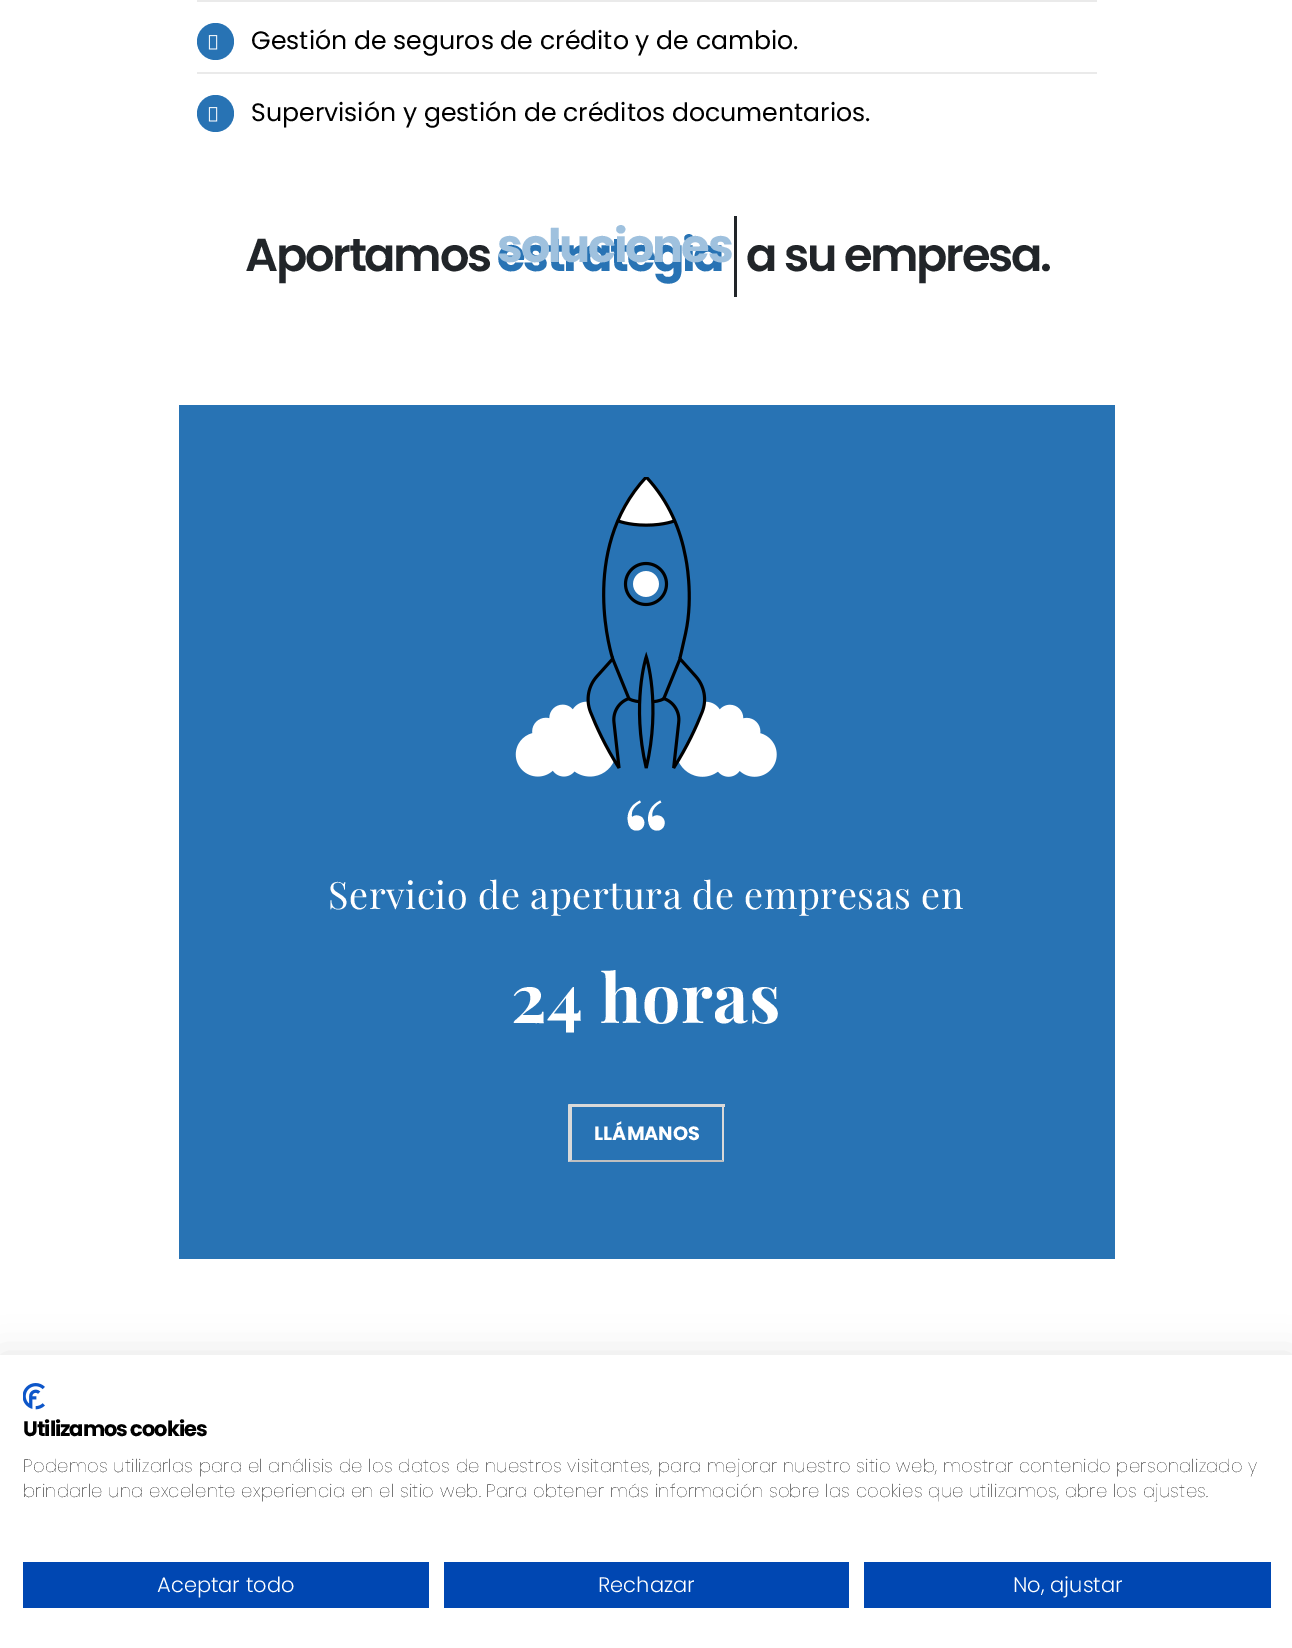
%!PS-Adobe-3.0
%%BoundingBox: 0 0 1292 1648
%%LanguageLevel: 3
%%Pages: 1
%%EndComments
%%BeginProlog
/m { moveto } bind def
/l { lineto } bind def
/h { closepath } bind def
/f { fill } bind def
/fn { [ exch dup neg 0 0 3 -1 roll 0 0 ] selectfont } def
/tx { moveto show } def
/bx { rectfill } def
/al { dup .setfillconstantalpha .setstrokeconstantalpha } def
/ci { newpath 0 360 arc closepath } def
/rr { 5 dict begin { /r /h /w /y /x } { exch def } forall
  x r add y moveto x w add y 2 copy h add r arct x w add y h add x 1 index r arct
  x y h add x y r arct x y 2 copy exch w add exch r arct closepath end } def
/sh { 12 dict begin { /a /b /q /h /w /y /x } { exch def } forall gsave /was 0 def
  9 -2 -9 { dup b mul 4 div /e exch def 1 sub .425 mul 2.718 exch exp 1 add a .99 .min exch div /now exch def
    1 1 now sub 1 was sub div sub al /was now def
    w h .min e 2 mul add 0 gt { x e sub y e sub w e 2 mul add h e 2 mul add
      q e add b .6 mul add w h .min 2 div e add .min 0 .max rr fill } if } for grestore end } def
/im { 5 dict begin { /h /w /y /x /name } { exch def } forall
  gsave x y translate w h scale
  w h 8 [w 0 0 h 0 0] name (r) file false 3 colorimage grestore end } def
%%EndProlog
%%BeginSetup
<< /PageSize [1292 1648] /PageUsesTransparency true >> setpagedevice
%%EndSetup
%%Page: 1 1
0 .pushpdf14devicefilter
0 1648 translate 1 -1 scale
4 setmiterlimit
1 setgray
0 0 1292 1648 bx
0.918 setgray
197 0 900 2 bx
197 72 900 2 bx
0.157 0.451 0.706 setrgbcolor
215.5 41.5 18.5 ci f
(image0.raw) 208 35 10 15 im
/Poppins-Regular 25.2 fn
0 setgray
(Gestión de seguros de crédito y de cambio.) 251 49 tx
0.157 0.451 0.706 setrgbcolor
215.5 113.5 18.5 ci f
(image0.raw) 208 107 10 15 im
0 setgray
(Supervisión y gestión de créditos documentarios.) 251 121 tx
/Poppins-SemiBold 46.25 fn
0.129 0.145 0.161 setrgbcolor
245 271 m -2.25 0 (Aportamos) ashow
/Poppins-Bold 46.25 fn
0.157 0.451 0.706 setrgbcolor
497 271 m -2.25 0 (estrategia) ashow
0.624 0.757 0.871 setrgbcolor
497 262 m -2.25 0 (soluciones) ashow
0.129 0.145 0.161 setrgbcolor
734 216 3 81 bx
/Poppins-SemiBold 46.25 fn
746 271 m -2.25 0 (a su empresa.) ashow
0.157 0.451 0.706 setrgbcolor
179 405 936 854 bx
(image1.raw) 515 477 262 300 im
/PlayfairDisplay-Regular 120 fn
1 setgray
(“) 621 887 tx
/PlayfairDisplay-Regular 37.75 fn
328 909 m 0.55 0 (Servicio de apertura de empresas en) ashow
/PlayfairDisplay-Bold 68 fn
511 1023 m 0.55 0 (24 horas) ashow
0.851 setgray
569 1104 156 3 bx
724 1104 m 724 1162 l 722 1160 l 722 1107 l h f
0.749 setgray
724 1162 m 568 1162 l 572 1160 l 722 1160 l h f
0.851 setgray
568 1162 m 568 1104 l 572 1107 l 572 1160 l h f
/Poppins-Bold 19.25 fn
1 setgray
(LLÁMANOS) 594 1140 tx
0 setgray
0 1355 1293 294 0 18 0.1 sh
1 setgray
0 1355 1292 293 bx
(image2.raw) 23 1383 22 27 im
/Poppins-Bold 21 fn
0 setgray
23 1436 m -1 0 (Utilizamos cookies) ashow
/Poppins-Thin 18 fn
23 1472 m 0.27 0 (Podemos utilizarlas para el análisis de los datos de nuestros visitantes, para mejorar nuestro sitio web, mostrar contenido personalizado y) ashow
23 1497 m 0.27 0 (brindarle una excelente experiencia en el sitio web. Para obtener más información sobre las cookies que utilizamos, abre los ajustes.) ashow
0 0.278 0.698 setrgbcolor
23 1562 406 46 bx
/Poppins-Light 21 fn
1 setgray
(Aceptar todo) 157 1592 tx
0 0.278 0.698 setrgbcolor
444 1562 405 46 bx
1 setgray
(Rechazar) 598 1592 tx
0 0.278 0.698 setrgbcolor
864 1562 407 46 bx
1 setgray
(No, ajustar) 1013 1592 tx
.poppdf14devicefilter showpage
%%EOF
